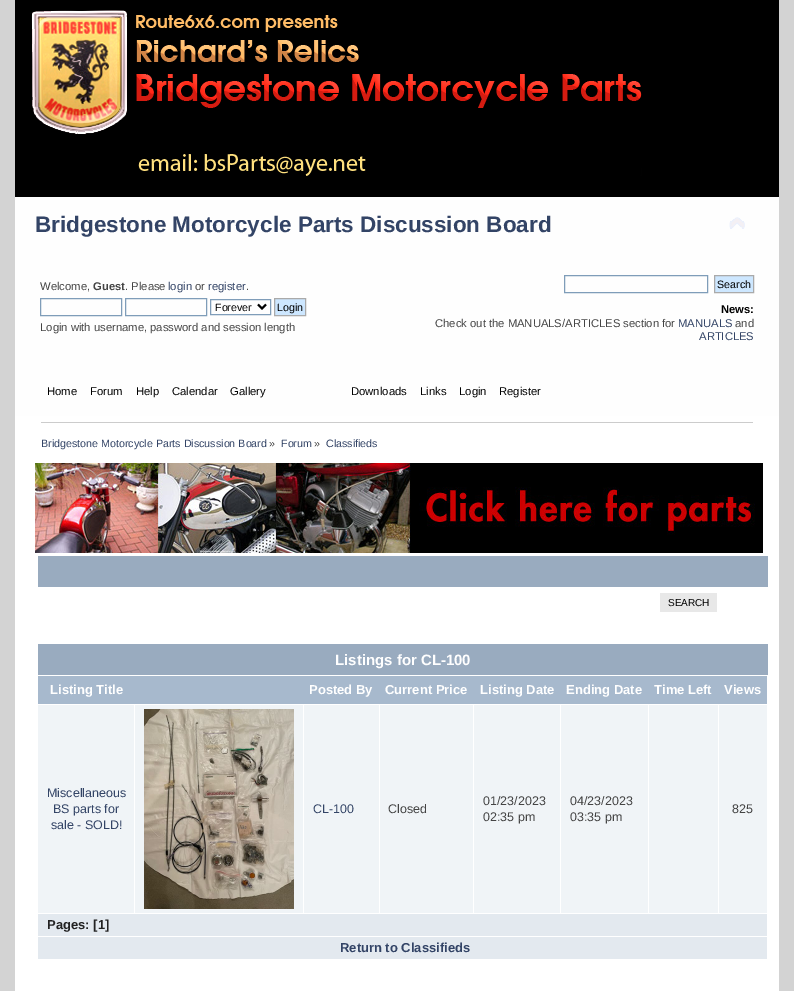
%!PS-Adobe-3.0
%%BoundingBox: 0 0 794 991
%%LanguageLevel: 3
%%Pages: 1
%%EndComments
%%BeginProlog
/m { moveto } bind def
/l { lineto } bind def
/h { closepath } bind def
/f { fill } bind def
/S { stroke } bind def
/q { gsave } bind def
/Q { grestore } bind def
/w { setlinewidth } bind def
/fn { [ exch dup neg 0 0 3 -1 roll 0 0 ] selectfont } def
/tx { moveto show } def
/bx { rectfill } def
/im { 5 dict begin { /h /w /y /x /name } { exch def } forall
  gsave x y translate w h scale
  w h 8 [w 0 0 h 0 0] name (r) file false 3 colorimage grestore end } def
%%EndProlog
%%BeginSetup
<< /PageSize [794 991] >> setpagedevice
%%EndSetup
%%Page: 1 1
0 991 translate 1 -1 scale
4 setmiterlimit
0.827 setgray
0 0 794 991 bx
0 setgray
15 0 764 197 bx
(image0.raw) 31 10 611 166 im
0.996 setgray
15 197 764 219 bx
/LiberationSans-Bold 22.5 fn
0.2 0.267 0.4 setrgbcolor
(Bridgestone Motorcycle Parts Discussion Board) 35 232 tx
(image1.raw) 729 217 16 12 im
/LiberationSans-Regular 11.25 fn
0.267 setgray
(Welcome,) 40 290 tx
/LiberationSans-Bold 11.25 fn
(Guest) 93 290 tx
/LiberationSans-Regular 11.25 fn
(. Please) 125 290 tx
0.2 0.267 0.4 setrgbcolor
(login) 168 290 tx
0.267 setgray
(or) 195 290 tx
0.2 0.267 0.4 setrgbcolor
(register) 208 290 tx
0.267 setgray
(.) 246 290 tx
0.498 0.616 0.725 setrgbcolor
40.5 298.5 81 17 rectstroke
125.5 298.5 81 17 rectstroke
210.5 299.5 60 15 rectstroke
0 setgray
2 w
258 304.5 m 262 308.5 l 266 304.5 l S
/LiberationSans-Regular 10.7 fn
(Forever) 215 311 tx
0.804 0.906 1 setrgbcolor
274.5 298.5 m 305.5 298.5 l 305.5 315.5 l 274.5 315.5 l h q f Q
0.667 setgray
1 w
S
0 setgray
(Login) 277 311 tx
/LiberationSans-Regular 11.25 fn
0.267 setgray
(Login with username, password and session length) 40 331 tx
0.498 0.616 0.725 setrgbcolor
564.5 275.5 143 17 rectstroke
0.804 0.906 1 setrgbcolor
714.5 275.5 m 753.5 275.5 l 753.5 292.5 l 714.5 292.5 l h q f Q
0.667 setgray
S
/LiberationSans-Regular 10.7 fn
0 setgray
(Search) 717 288 tx
/LiberationSans-Bold 11.25 fn
(News:) 721 313 tx
/LiberationSans-Regular 11.25 fn
0.267 setgray
(Check out the MANUALS/ARTICLES section for) 435 327 tx
0.2 0.267 0.4 setrgbcolor
(MANUALS) 678 327 tx
0.267 setgray
(and) 735 327 tx
0.2 0.267 0.4 setrgbcolor
(ARTICLES) 699 340 tx
0 setgray
(Home) 47 395 tx
(Forum) 90 395 tx
(Help) 136 395 tx
(Calendar) 172 395 tx
(Gallery) 230 395 tx
(Downloads) 351 395 tx
(Links) 420 395 tx
(Login) 459 395 tx
(Register) 499 395 tx
1 setgray
15 416 764 575 bx
0.8 setgray
41 422 712 1 bx
/LiberationSans-Regular 10.7 fn
0.2 0.267 0.4 setrgbcolor
(Bridgestone Motorcycle Parts Discussion Board) 41 447 tx
0.267 setgray
(») 269 447 tx
0.2 0.267 0.4 setrgbcolor
(Forum) 281 447 tx
0.267 setgray
(») 314 447 tx
0.2 0.267 0.4 setrgbcolor
(Classifieds) 326 447 tx
(image2.raw) 35 463 728 90 im
0.6 0.671 0.749 setrgbcolor
38 556 730 31 bx
0.91 setgray
660 593 57 19 bx
/LiberationSans-Regular 10 fn
0 setgray
(SEARCH) 668 606 tx
0.6 0.671 0.749 setrgbcolor
38 644 730 31 bx
/LiberationSans-Bold 15 fn
1 setgray
(Listings for CL-100) 335 665 tx
0.655 0.725 0.804 setrgbcolor
38 676 729 28 bx
/LiberationSans-Bold 13 fn
1 setgray
(Listing Title) 50 694 tx
(Posted By) 309 694 tx
(Current Price) 385 694 tx
(Listing Date) 480 694 tx
(Ending Date) 566 694 tx
(Time Left) 654 694 tx
(Views) 724 694 tx
0.941 0.957 0.969 setrgbcolor
38 705 729 208 bx
1 setgray
134 704 1 210 bx
/LiberationSans-Regular 12.5 fn
0.2 0.267 0.4 setrgbcolor
(Miscellaneous) 47 797 tx
(BS parts for) 53 813 tx
(sale - SOLD!) 51 829 tx
1 setgray
303 704 1 210 bx
(image3.raw) 144 709 150 200 im
379 704 1 210 bx
0.2 0.267 0.4 setrgbcolor
(CL-100) 313 813 tx
1 setgray
473 704 1 210 bx
0.267 setgray
(Closed) 388 813 tx
1 setgray
560 704 1 210 bx
0.267 setgray
(01/23/2023) 483 805 tx
(02:35 pm) 483 821 tx
1 setgray
648 704 1 210 bx
0.267 setgray
(04/23/2023) 570 805 tx
(03:35 pm) 570 821 tx
1 setgray
718 704 1 210 bx
0.267 setgray
(825) 732 813 tx
0.89 0.914 0.937 setrgbcolor
38 914 729 22 bx
/LiberationSans-Bold 13 fn
0.133 setgray
(Pages: [1]) 47 929 tx
0.89 0.914 0.937 setrgbcolor
38 937 729 22 bx
0.2 0.267 0.4 setrgbcolor
(Return to Classifieds) 340 952 tx
showpage
%%EOF
